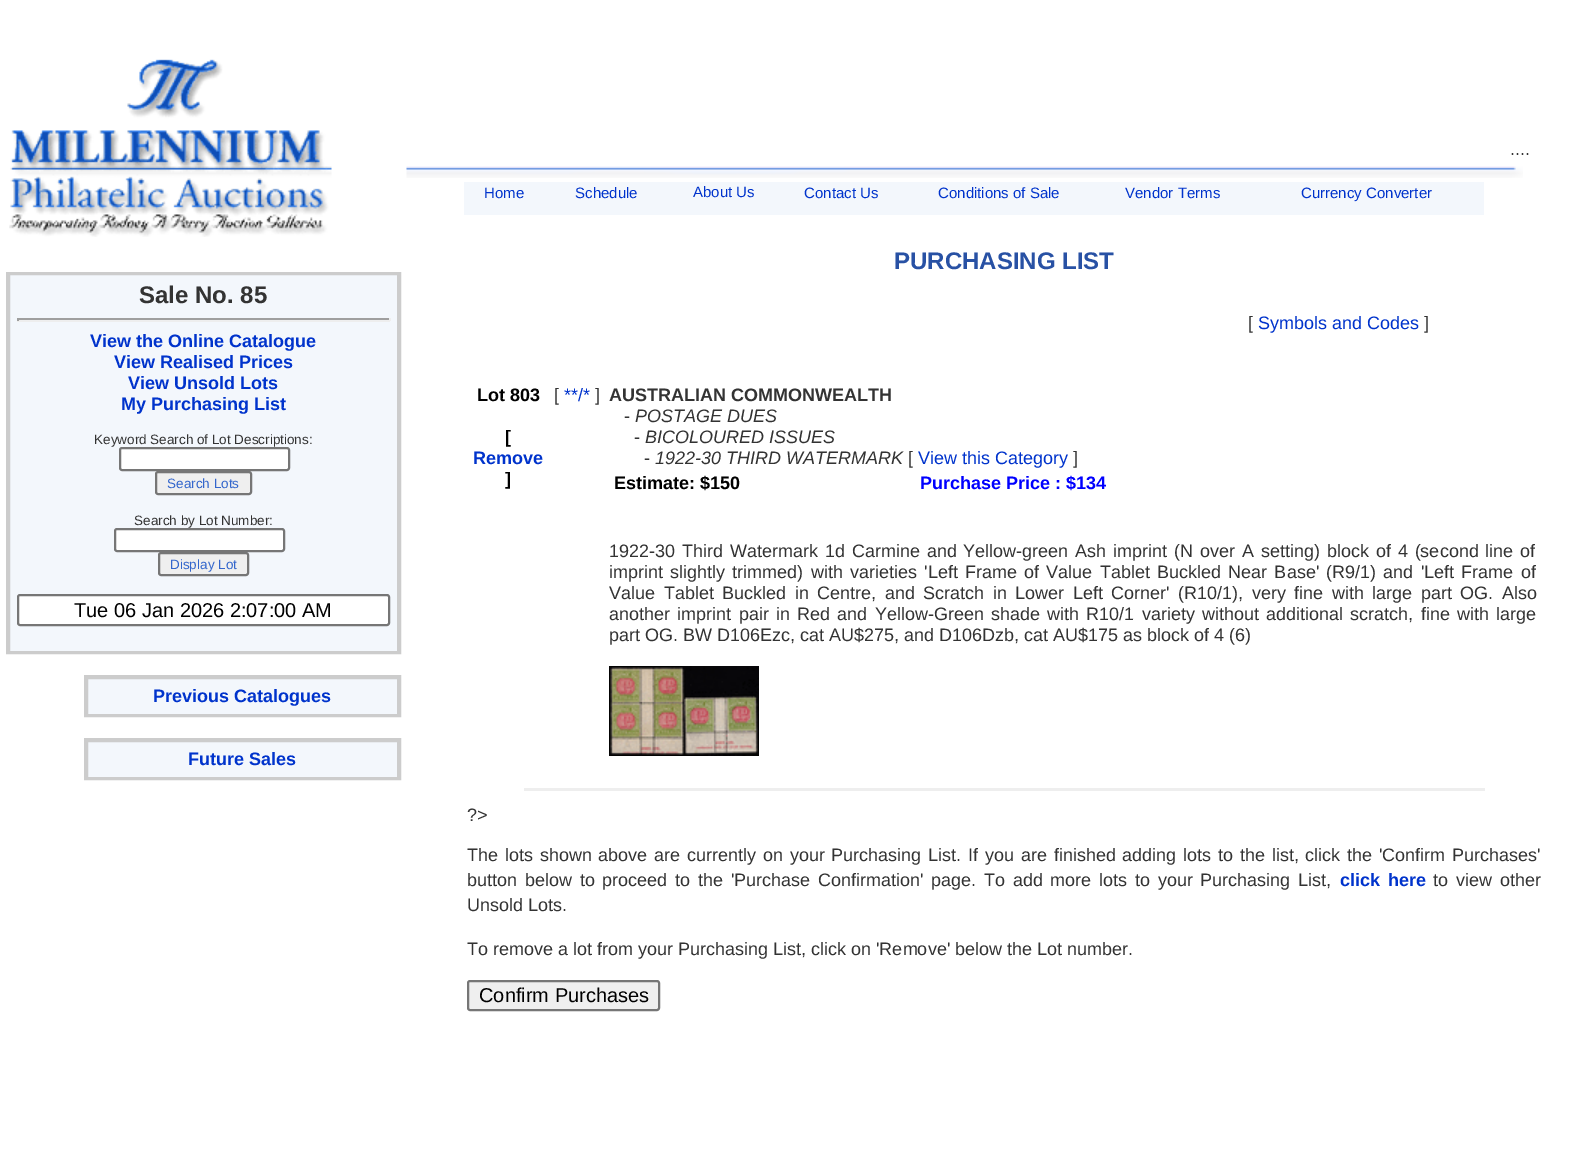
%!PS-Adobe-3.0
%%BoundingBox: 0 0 1588 1152
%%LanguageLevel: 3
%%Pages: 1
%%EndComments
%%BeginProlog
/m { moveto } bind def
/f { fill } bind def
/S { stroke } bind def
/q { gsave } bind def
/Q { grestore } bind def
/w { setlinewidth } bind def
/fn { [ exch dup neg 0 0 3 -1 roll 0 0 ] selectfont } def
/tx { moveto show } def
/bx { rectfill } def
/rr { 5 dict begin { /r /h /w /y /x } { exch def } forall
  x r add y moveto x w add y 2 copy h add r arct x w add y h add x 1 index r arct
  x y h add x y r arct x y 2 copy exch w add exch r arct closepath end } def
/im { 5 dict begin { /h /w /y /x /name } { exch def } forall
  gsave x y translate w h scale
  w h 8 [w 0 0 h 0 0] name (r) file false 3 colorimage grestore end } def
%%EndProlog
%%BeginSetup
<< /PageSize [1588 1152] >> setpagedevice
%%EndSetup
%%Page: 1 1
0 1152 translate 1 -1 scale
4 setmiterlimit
1 setgray
0 0 1588 1152 bx
/LiberationSans-Regular 18 fn
0.2 setgray
(....) 1510 155 tx
(image0.raw) 9 59 323 178 im
0.953 0.969 0.988 setrgbcolor
10 275 387 376 bx
0.8 setgray
2 w
7 273 393 380 rectstroke
9 274 389 378 rectstroke
/LiberationSans-Bold 24 fn
0.2 setgray
(Sale No. 85) 139 303 tx
0.624 setgray
17 318 373 2 bx
0.933 setgray
389 318 2 3 bx
17 320 373 2 bx
0.624 setgray
17 318 2 3 bx
/LiberationSans-Bold 18 fn
0 0.2 0.8 setrgbcolor
(View the Online Catalogue) 90 347 tx
(View Realised Prices) 114 368 tx
(View Unsold Lots) 128 389 tx
(My Purchasing List) 121 410 tx
/LiberationSans-Regular 13.5 fn
0.2 setgray
(Keyword Search of Lot Descriptions:) 94 444 tx
1 setgray
120 448 169 22 2 rr q f Q
0.463 setgray
S
0.937 setgray
156 472 95 22 2 rr q f Q
0.463 setgray
S
0.2 0.4 0.8 setrgbcolor
(Search Lots) 167 488 tx
0.2 setgray
(Search by Lot Number:) 134 525 tx
1 setgray
115 529 169 22 2 rr q f Q
0.463 setgray
S
0.937 setgray
159 553 89 22 2 rr q f Q
0.463 setgray
S
0.2 0.4 0.8 setrgbcolor
(Display Lot) 170 569 tx
1 setgray
18 595 371 30 2 rr q f Q
0.463 setgray
S
/LiberationSans-Regular 20 fn
0 setgray
(Tue 06 Jan 2026 2:07:00 AM) 74 617 tx
0.953 0.969 0.988 setrgbcolor
88 679 309 35 bx
0.8 setgray
85 676 315 40 rectstroke
87 678 311 37 rectstroke
/LiberationSans-Bold 18 fn
0 0.2 0.8 setrgbcolor
(Previous Catalogues) 153 702 tx
0.953 0.969 0.988 setrgbcolor
88 742 309 35 bx
0.8 setgray
85 739 315 40 rectstroke
87 741 311 37 rectstroke
0 0.2 0.8 setrgbcolor
(Future Sales) 188 765 tx
(image1.raw) 406 166 1117 12 im
0.953 0.969 0.988 setrgbcolor
464 182 1020 33 bx
/LiberationSans-Regular 15 fn
0 0.2 0.8 setrgbcolor
(Home) 484 198 tx
(Schedule) 575 198 tx
(About Us) 693 197 tx
(Contact Us) 804 198 tx
(Conditions of Sale) 938 198 tx
(Vendor Terms) 1125 198 tx
(Currency Converter) 1301 198 tx
/LiberationSans-Bold 24 fn
0.157 0.318 0.643 setrgbcolor
(PURCHASING LIST) 894 269 tx
/LiberationSans-Regular 18 fn
0.2 setgray
([) 1248 329 tx
0 0.2 0.8 setrgbcolor
(Symbols and Codes) 1258 329 tx
0.2 setgray
(]) 1424 329 tx
/LiberationSans-Bold 18 fn
0 setgray
(Lot 803) 477 401 tx
([) 505 443 tx
0 0.2 0.8 setrgbcolor
(Remove) 473 464 tx
0 setgray
(]) 505 485 tx
/LiberationSans-Regular 18 fn
0.2 setgray
([) 554 401 tx
0 0.2 0.8 setrgbcolor
(**/*) 564 401 tx
0.2 setgray
(]) 595 401 tx
/LiberationSans-Bold 18 fn
(AUSTRALIAN COMMONWEALTH) 609 401 tx
/LiberationSans-Regular 18 fn
(-) 624 422 tx
/LiberationSans-Italic 18 fn
(POSTAGE DUES) 635 422 tx
/LiberationSans-Regular 18 fn
(-) 634 443 tx
/LiberationSans-Italic 18 fn
(BICOLOURED ISSUES) 645 443 tx
/LiberationSans-Regular 18 fn
(-) 644 464 tx
/LiberationSans-Italic 18 fn
(1922-30 THIRD WATERMARK) 655 464 tx
/LiberationSans-Regular 18 fn
([) 908 464 tx
0 0.2 0.8 setrgbcolor
(View this Category) 918 464 tx
0.2 setgray
(]) 1073 464 tx
/LiberationSans-Bold 18 fn
0 setgray
(Estimate: $150) 614 489 tx
0 0 1 setrgbcolor
(Purchase Price : $134) 920 489 tx
/LiberationSans-Regular 18 fn
0.2 setgray
609 557 m 1.9 0 32 (1922-30 Third Watermark 1d Carmine and Yellow-green Ash imprint \(N over A setting\) block of 4 \(second line of) widthshow
609 578 m 2.25 0 32 (imprint slightly trimmed\) with varieties 'Left Frame of Value Tablet Buckled Near Base' \(R9/1\) and 'Left Frame of) widthshow
609 599 m 3.5 0 32 (Value Tablet Buckled in Centre, and Scratch in Lower Left Corner' \(R10/1\), very fine with large part OG. Also) widthshow
609 620 m 2.25 0 32 (another imprint pair in Red and Yellow-Green shade with R10/1 variety without additional scratch, fine with large) widthshow
(part OG. BW D106Ezc, cat AU$275, and D106Dzb, cat AU$175 as block of 4 \(6\)) 609 641 tx
(image2.raw) 609 666 150 90 im
0.933 setgray
524 788 961 3 bx
0.2 setgray
(?>) 467 821 tx
467 861 m 1.8 0 32 (The lots shown above are currently on your Purchasing List. If you are finished adding lots to the list, click the 'Confirm Purchases') widthshow
467 886 m 2.75 0 32 (button below to proceed to the 'Purchase Confirmation' page. To add more lots to your Purchasing List,) widthshow
/LiberationSans-Bold 18 fn
0 0.2 0.8 setrgbcolor
1340 886 m 2.75 0 32 (click here) widthshow
/LiberationSans-Regular 18 fn
0.2 setgray
1433 886 m 2.75 0 32 (to view other) widthshow
(Unsold Lots.) 467 911 tx
(To remove a lot from your Purchasing List, click on 'Remove' below the Lot number.) 467 955 tx
0.937 setgray
468 981 191 29 2 rr q f Q
0.463 setgray
S
/LiberationSans-Regular 20 fn
0 setgray
(Confirm Purchases) 479 1002 tx
showpage
%%EOF
